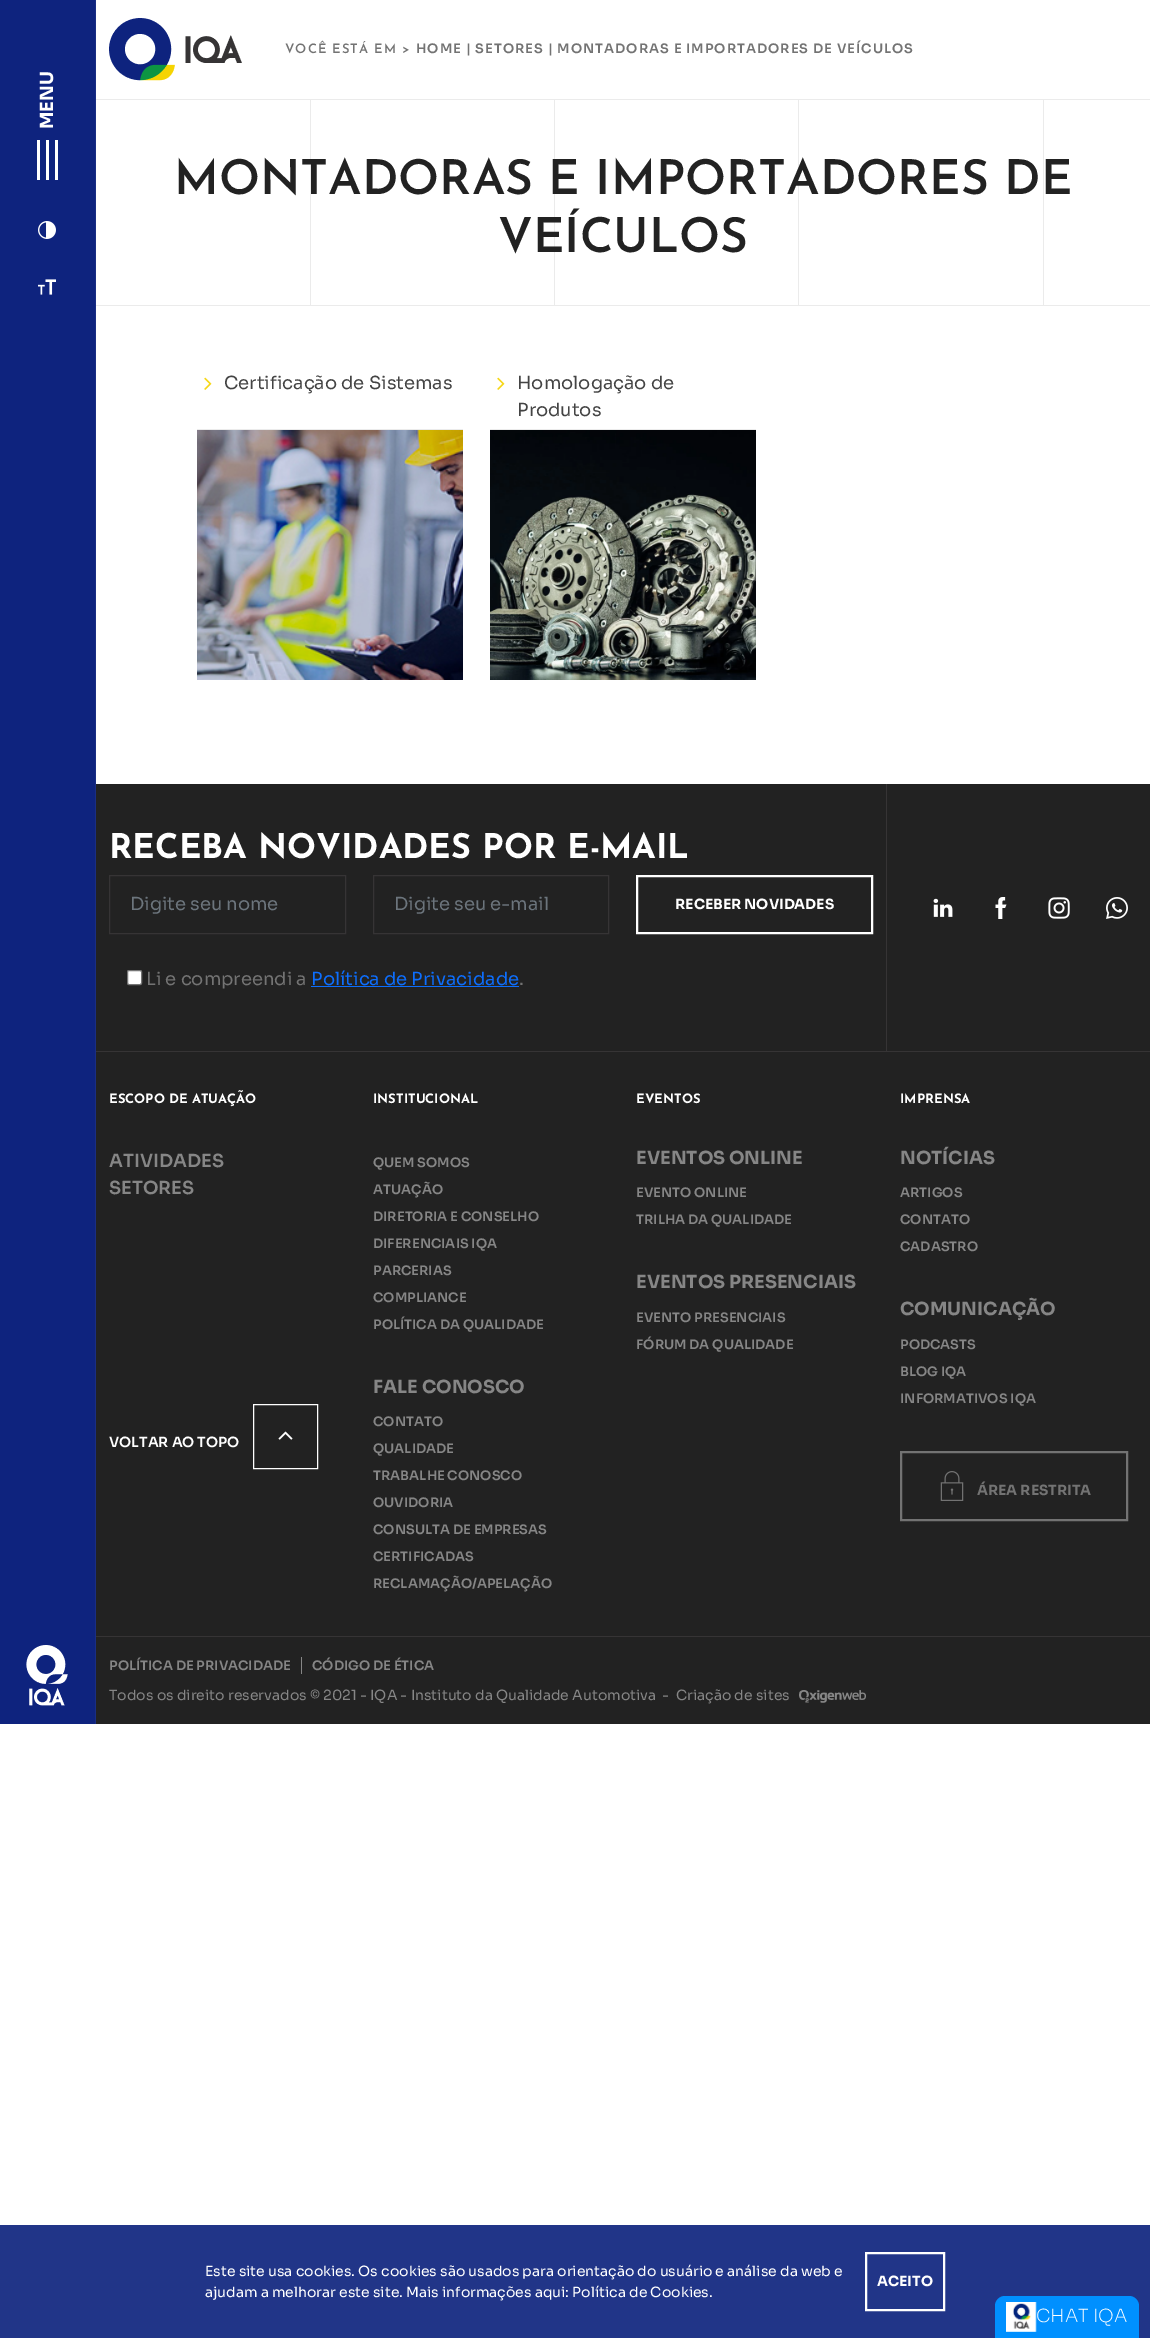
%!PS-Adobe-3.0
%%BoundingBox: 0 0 1150 2338
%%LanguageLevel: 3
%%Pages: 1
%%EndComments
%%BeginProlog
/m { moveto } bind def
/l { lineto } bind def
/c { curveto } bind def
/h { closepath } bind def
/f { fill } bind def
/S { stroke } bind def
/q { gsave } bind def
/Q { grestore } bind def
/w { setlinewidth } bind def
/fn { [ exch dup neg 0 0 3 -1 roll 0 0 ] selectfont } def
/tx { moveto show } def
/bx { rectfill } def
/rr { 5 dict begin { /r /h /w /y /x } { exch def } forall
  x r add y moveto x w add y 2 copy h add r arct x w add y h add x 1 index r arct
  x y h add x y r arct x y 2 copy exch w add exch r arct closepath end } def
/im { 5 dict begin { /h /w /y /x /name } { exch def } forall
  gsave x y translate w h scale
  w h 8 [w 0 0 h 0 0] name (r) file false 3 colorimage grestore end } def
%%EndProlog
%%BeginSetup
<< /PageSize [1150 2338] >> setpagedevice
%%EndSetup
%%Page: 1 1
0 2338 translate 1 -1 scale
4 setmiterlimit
1 setgray
0 0 1150 2338 bx
0.129 0.208 0.533 setrgbcolor
0 2225 1150 113 bx
0.922 setgray
96 99 1054 1 bx
(image0.raw) 109 18 133 63 im
/JosefinSans-SemiBold 13 fn
0.451 setgray
285 53 m 1 0 (VOCÊ ESTÁ EM >) ashow
/Sora-SemiBold 13 fn
416 53 m 1 0 (HOME | SETORES | MONTADORAS E IMPORTADORES DE VEÍCULOS) ashow
0.055 0.137 0.494 setrgbcolor
0 0 95 1724 bx
0.102 0.18 0.518 setrgbcolor
95 0 1 1724 bx
/Sora-Bold 18 fn
1 setgray
q 53 129 translate -90 rotate 0 0 m (MENU) show Q
37 140 3 40 bx
46 140 3 40 bx
55 140 3 40 bx
(image1.raw) 38 221 18 18 im
(image2.raw) 38 279 18 16 im
0.922 setgray
96 305 1054 1 bx
310 100 1 205 bx
554 100 1 205 bx
798 100 1 205 bx
1043 100 1 205 bx
/JosefinSans-SemiBold 48 fn
0.133 setgray
(MONTADORAS E IMPORTADORES DE) 174 194 tx
(VEÍCULOS) 498 252 tx
0.922 setgray
197 429 266 1 bx
(image3.raw) 204 377 8 13 im
/Sora-Regular 18 fn
0.267 setgray
(Certificação de Sistemas) 224 389 tx
(image4.raw) 197 430 266 250 im
0.922 setgray
490 429 266 1 bx
(image3.raw) 497 377 8 13 im
0.267 setgray
(Homologação de) 517 389 tx
(Produtos) 517 416 tx
(image5.raw) 490 430 266 250 im
0.133 setgray
96 784 1054 940 bx
(image6.raw) 26 1645 42 61 im
0.212 0.204 0.208 setrgbcolor
96 1051 1054 1 bx
/JosefinSans-Bold 34 fn
1 setgray
(RECEBA NOVIDADES POR E-MAIL) 109 858 tx
0.212 0.204 0.208 setrgbcolor
109.5 875.5 236 58 rectstroke
/Sora-Regular 18 fn
0.424 0.459 0.49 setrgbcolor
(Digite seu nome) 130 910 tx
0.212 0.204 0.208 setrgbcolor
373.5 875.5 235 58 rectstroke
0.424 0.459 0.49 setrgbcolor
(Digite seu e-mail) 394 910 tx
1 setgray
2 w
637 876 235 57 rectstroke
/Sora-Bold 14 fn
(RECEBER NOVIDADES) 675 909 tx
127.5 970.5 14 14 1.5 rr q f Q
0.463 setgray
1 w
S
/Sora-Regular 18 fn
0.451 setgray
(Li e compreendi a) 146 985 tx
0.051 0.431 0.992 setrgbcolor
(Política de Privacidade) 311 985 tx
311 986 208 1 bx
0.451 setgray
(.) 519 985 tx
0.212 0.204 0.208 setrgbcolor
886 784 1 267 bx
(image7.raw) 933 898 20 19 im
(image8.raw) 995 897 12 22 im
(image9.raw) 1048 897 22 22 im
(image10.raw) 1106 897 22 22 im
/JosefinSans-Bold 13 fn
1 setgray
(ESCOPO DE ATUAÇÃO) 109 1103 tx
/Sora-SemiBold 18 fn
0.525 setgray
(ATIVIDADES) 109 1167 tx
(SETORES) 109 1194 tx
/Sora-SemiBold 14 fn
1 setgray
(VOLTAR AO TOPO) 109 1447 tx
253.5 1404.5 64 64 rectstroke
(image11.raw) 278 1431 15 9 im
/JosefinSans-Bold 13 fn
(INSTITUCIONAL) 373 1103 tx
/Sora-SemiBold 13 fn
0.525 setgray
(QUEM SOMOS) 373 1167 tx
(ATUAÇÃO) 373 1194 tx
(DIRETORIA E CONSELHO) 373 1221 tx
(DIFERENCIAIS IQA) 373 1248 tx
(PARCERIAS) 373 1275 tx
(COMPLIANCE) 373 1302 tx
(POLÍTICA DA QUALIDADE) 373 1329 tx
/Sora-Bold 18 fn
(FALE CONOSCO) 373 1393 tx
/Sora-SemiBold 13 fn
(CONTATO) 373 1426 tx
(QUALIDADE) 373 1453 tx
(TRABALHE CONOSCO) 373 1480 tx
(OUVIDORIA) 373 1507 tx
(CONSULTA DE EMPRESAS) 373 1534 tx
(CERTIFICADAS) 373 1561 tx
(RECLAMAÇÃO/APELAÇÃO) 373 1588 tx
/JosefinSans-Bold 13 fn
1 setgray
(EVENTOS) 636 1103 tx
/Sora-Bold 18 fn
0.525 setgray
(EVENTOS ONLINE) 636 1164 tx
/Sora-SemiBold 13 fn
(EVENTO ONLINE) 636 1197 tx
(TRILHA DA QUALIDADE) 636 1224 tx
/Sora-Bold 18 fn
(EVENTOS PRESENCIAIS) 636 1288 tx
/Sora-SemiBold 13 fn
(EVENTO PRESENCIAIS) 636 1322 tx
(FÓRUM DA QUALIDADE) 636 1349 tx
/JosefinSans-Bold 13 fn
1 setgray
(IMPRENSA) 900 1103 tx
/Sora-Bold 18 fn
0.525 setgray
(NOTÍCIAS) 900 1164 tx
/Sora-SemiBold 13 fn
(ARTIGOS) 900 1197 tx
(CONTATO) 900 1224 tx
(CADASTRO) 900 1251 tx
/Sora-Bold 18 fn
(COMUNICAÇÃO) 900 1315 tx
/Sora-SemiBold 13 fn
(PODCASTS) 900 1349 tx
(BLOG IQA) 900 1376 tx
(INFORMATIVOS IQA) 900 1403 tx
0.451 setgray
2 w
901 1452 226 68 rectstroke
(image12.raw) 940 1471 24 30 im
/Sora-Bold 14 fn
(ÁREA RESTRITA) 977 1495 tx
0.212 0.204 0.208 setrgbcolor
96 1636 1054 1 bx
/Sora-SemiBold 13 fn
0.525 setgray
(POLÍTICA DE PRIVACIDADE) 109 1670 tx
(CÓDIGO DE ÉTICA) 312 1670 tx
301 1657 1 17 bx
/Sora-Regular 14 fn
(Todos os direito reservados © 2021 - IQA - Instituto da Qualidade Automotiva) 109 1700 tx
(-) 662 1700 tx
(Criação de sites) 676 1700 tx
(image13.raw) 799 1690 67 13 im
1 setgray
(Este site usa cookies. Os cookies são usados para orientação do usuário e análise da web e) 205 2276 tx
(ajudam a melhorar este site. Mais informações aqui: Política de Cookies.) 205 2297 tx
866 2253 78 57 rectstroke
/Sora-Bold 14 fn
(ACEITO) 877 2286 tx
0 0.565 1 setrgbcolor
1005 2296 m 1129 2296 l 1134.5 2296 1139 2300.5 1139 2306 c 1139 2338 l 995 2338 l 995 2306 l 995 2300.5 999.5 2296 1005 2296 c h f
(image14.raw) 1006 2302 31 30 im
/Sora-ExtraLight 18 fn
1 setgray
(CHAT IQA) 1036 2322 tx
showpage
%%EOF
